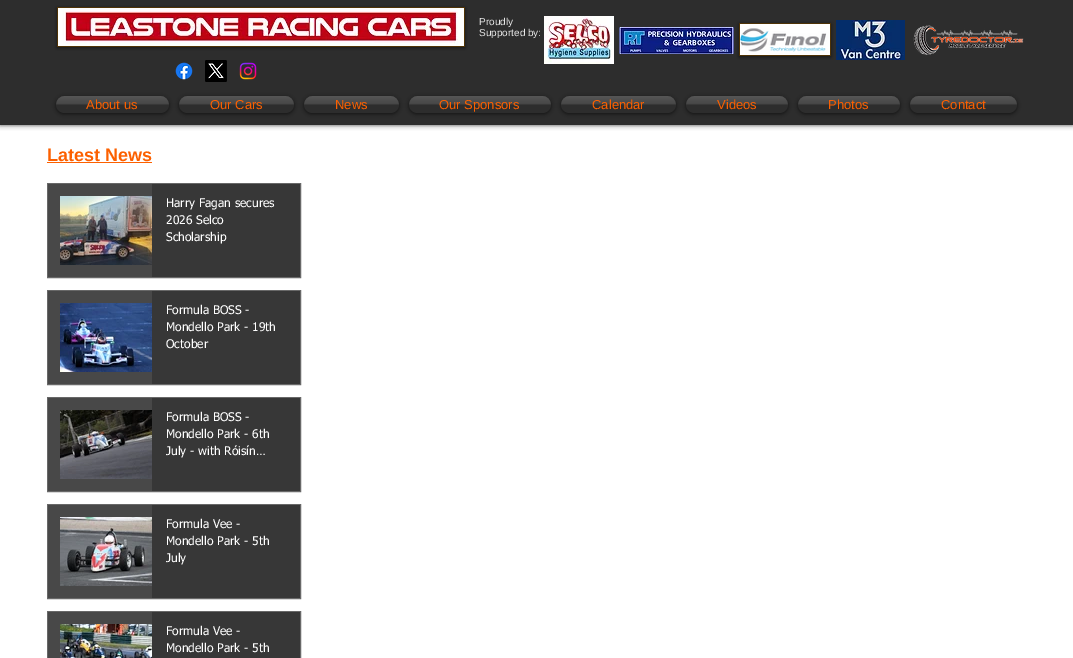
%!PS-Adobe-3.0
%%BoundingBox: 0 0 1073 658
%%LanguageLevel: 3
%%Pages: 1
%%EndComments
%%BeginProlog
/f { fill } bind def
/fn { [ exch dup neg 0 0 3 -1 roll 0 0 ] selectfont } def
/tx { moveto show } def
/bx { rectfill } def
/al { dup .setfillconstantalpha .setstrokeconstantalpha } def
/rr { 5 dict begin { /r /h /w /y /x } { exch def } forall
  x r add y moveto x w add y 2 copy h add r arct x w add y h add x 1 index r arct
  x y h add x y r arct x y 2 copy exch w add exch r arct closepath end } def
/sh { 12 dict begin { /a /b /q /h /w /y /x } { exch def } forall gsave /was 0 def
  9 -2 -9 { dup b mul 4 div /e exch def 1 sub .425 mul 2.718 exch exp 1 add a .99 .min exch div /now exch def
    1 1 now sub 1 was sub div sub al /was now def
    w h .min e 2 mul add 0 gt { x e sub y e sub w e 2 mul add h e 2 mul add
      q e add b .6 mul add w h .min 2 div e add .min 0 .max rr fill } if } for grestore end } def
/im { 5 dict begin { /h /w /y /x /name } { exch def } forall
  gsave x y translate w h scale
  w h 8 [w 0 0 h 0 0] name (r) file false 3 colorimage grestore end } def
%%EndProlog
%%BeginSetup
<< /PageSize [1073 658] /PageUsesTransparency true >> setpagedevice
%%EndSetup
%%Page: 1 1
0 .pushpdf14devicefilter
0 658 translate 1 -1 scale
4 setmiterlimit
1 setgray
0 0 1073 658 bx
0 setgray
0 0 1073 125 0 2.5 0.7 sh
0.176 setgray
0 0 1073 125 bx
0 setgray
57 8 408 40 0 1.5 0.5 sh
0.31 0.2 0.024 setrgbcolor
57 7 408 40 bx
(image0.raw) 58 8 406 38 im
/LiberationSans-Regular 10 fn
0.91 setgray
(Proudly) 479 25 tx
(Supported by:) 479 36 tx
(image1.raw) 544 16 70 48 im
(image2.raw) 619 27 115 27 im
0 setgray
739 24 92 33 0 1.5 0.5 sh
0.31 0.2 0.024 setrgbcolor
739 23 92 33 bx
(image3.raw) 740 24 90 31 im
(image4.raw) 836 20 69 40 im
(image5.raw) 913 25 111 30 im
(image6.raw) 175 62 18 18 im
(image7.raw) 205 60 22 22 im
(image8.raw) 239 62 18 18 im
0 setgray
56 97 113 17 8.5 2 0.6 sh
0.176 setgray
56 96 113 17 8.5 rr f
(image9.raw) 56 96 113 9 im
/LiberationSans-Regular 13 fn
0.988 0.376 0 setrgbcolor
(About us) 86 109 tx
0 setgray
179 97 115 17 8.5 2 0.6 sh
0.176 setgray
179 96 115 17 8.5 rr f
(image10.raw) 179 96 115 9 im
0.988 0.376 0 setrgbcolor
(Our Cars) 210 109 tx
0 setgray
304 97 95 17 8.5 2 0.6 sh
0.176 setgray
304 96 95 17 8.5 rr f
(image11.raw) 304 96 95 9 im
0.988 0.376 0 setrgbcolor
(News) 335 109 tx
0 setgray
409 97 142 17 8.5 2 0.6 sh
0.176 setgray
409 96 142 17 8.5 rr f
(image12.raw) 409 96 142 9 im
0.988 0.376 0 setrgbcolor
(Our Sponsors) 439 109 tx
0 setgray
561 97 115 17 8.5 2 0.6 sh
0.176 setgray
561 96 115 17 8.5 rr f
(image10.raw) 561 96 115 9 im
0.988 0.376 0 setrgbcolor
(Calendar) 592 109 tx
0 setgray
686 97 102 17 8.5 2 0.6 sh
0.176 setgray
686 96 102 17 8.5 rr f
(image13.raw) 686 96 102 9 im
0.988 0.376 0 setrgbcolor
(Videos) 717 109 tx
0 setgray
798 97 102 17 8.5 2 0.6 sh
0.176 setgray
798 96 102 17 8.5 rr f
(image13.raw) 798 96 102 9 im
0.988 0.376 0 setrgbcolor
(Photos) 828 109 tx
0 setgray
910 97 107 17 8.5 2 0.6 sh
0.176 setgray
910 96 107 17 8.5 rr f
(image14.raw) 910 96 107 9 im
0.988 0.376 0 setrgbcolor
(Contact) 941 109 tx
/LiberationSans-Bold 18 fn
(Latest News) 47 161 tx
47 162 105 1 bx
0.408 setgray
47.5 183.5 253 94 rectstroke
0.282 setgray
48 184 104 93 bx
(image15.raw) 60 196 92 69 im
0.216 setgray
152 184 148 93 bx
/tahoma-Regular 12 fn
1 setgray
(Harry Fagan secures) 166 207 tx
(2026 Selco) 166 224 tx
(Scholarship) 166 241 tx
0.408 setgray
47.5 290.5 253 94 rectstroke
0.282 setgray
48 291 104 93 bx
(image16.raw) 60 303 92 69 im
0.216 setgray
152 291 148 93 bx
1 setgray
(Formula BOSS -) 166 314 tx
(Mondello Park - 19th) 166 331 tx
(October) 166 348 tx
0.408 setgray
47.5 397.5 253 94 rectstroke
0.282 setgray
48 398 104 93 bx
(image17.raw) 60 410 92 69 im
0.216 setgray
152 398 148 93 bx
1 setgray
(Formula BOSS -) 166 421 tx
(Mondello Park - 6th) 166 438 tx
(July - with Róisín…) 166 455 tx
0.408 setgray
47.5 504.5 253 94 rectstroke
0.282 setgray
48 505 104 93 bx
(image18.raw) 60 517 92 69 im
0.216 setgray
152 505 148 93 bx
1 setgray
(Formula Vee -) 166 528 tx
(Mondello Park - 5th) 166 545 tx
(July) 166 562 tx
0.408 setgray
47.5 611.5 253 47 rectstroke
0.282 setgray
48 612 104 46 bx
(image19.raw) 60 624 92 34 im
0.216 setgray
152 612 148 46 bx
1 setgray
(Formula Vee -) 166 635 tx
(Mondello Park - 5th) 166 652 tx
.poppdf14devicefilter showpage
%%EOF
